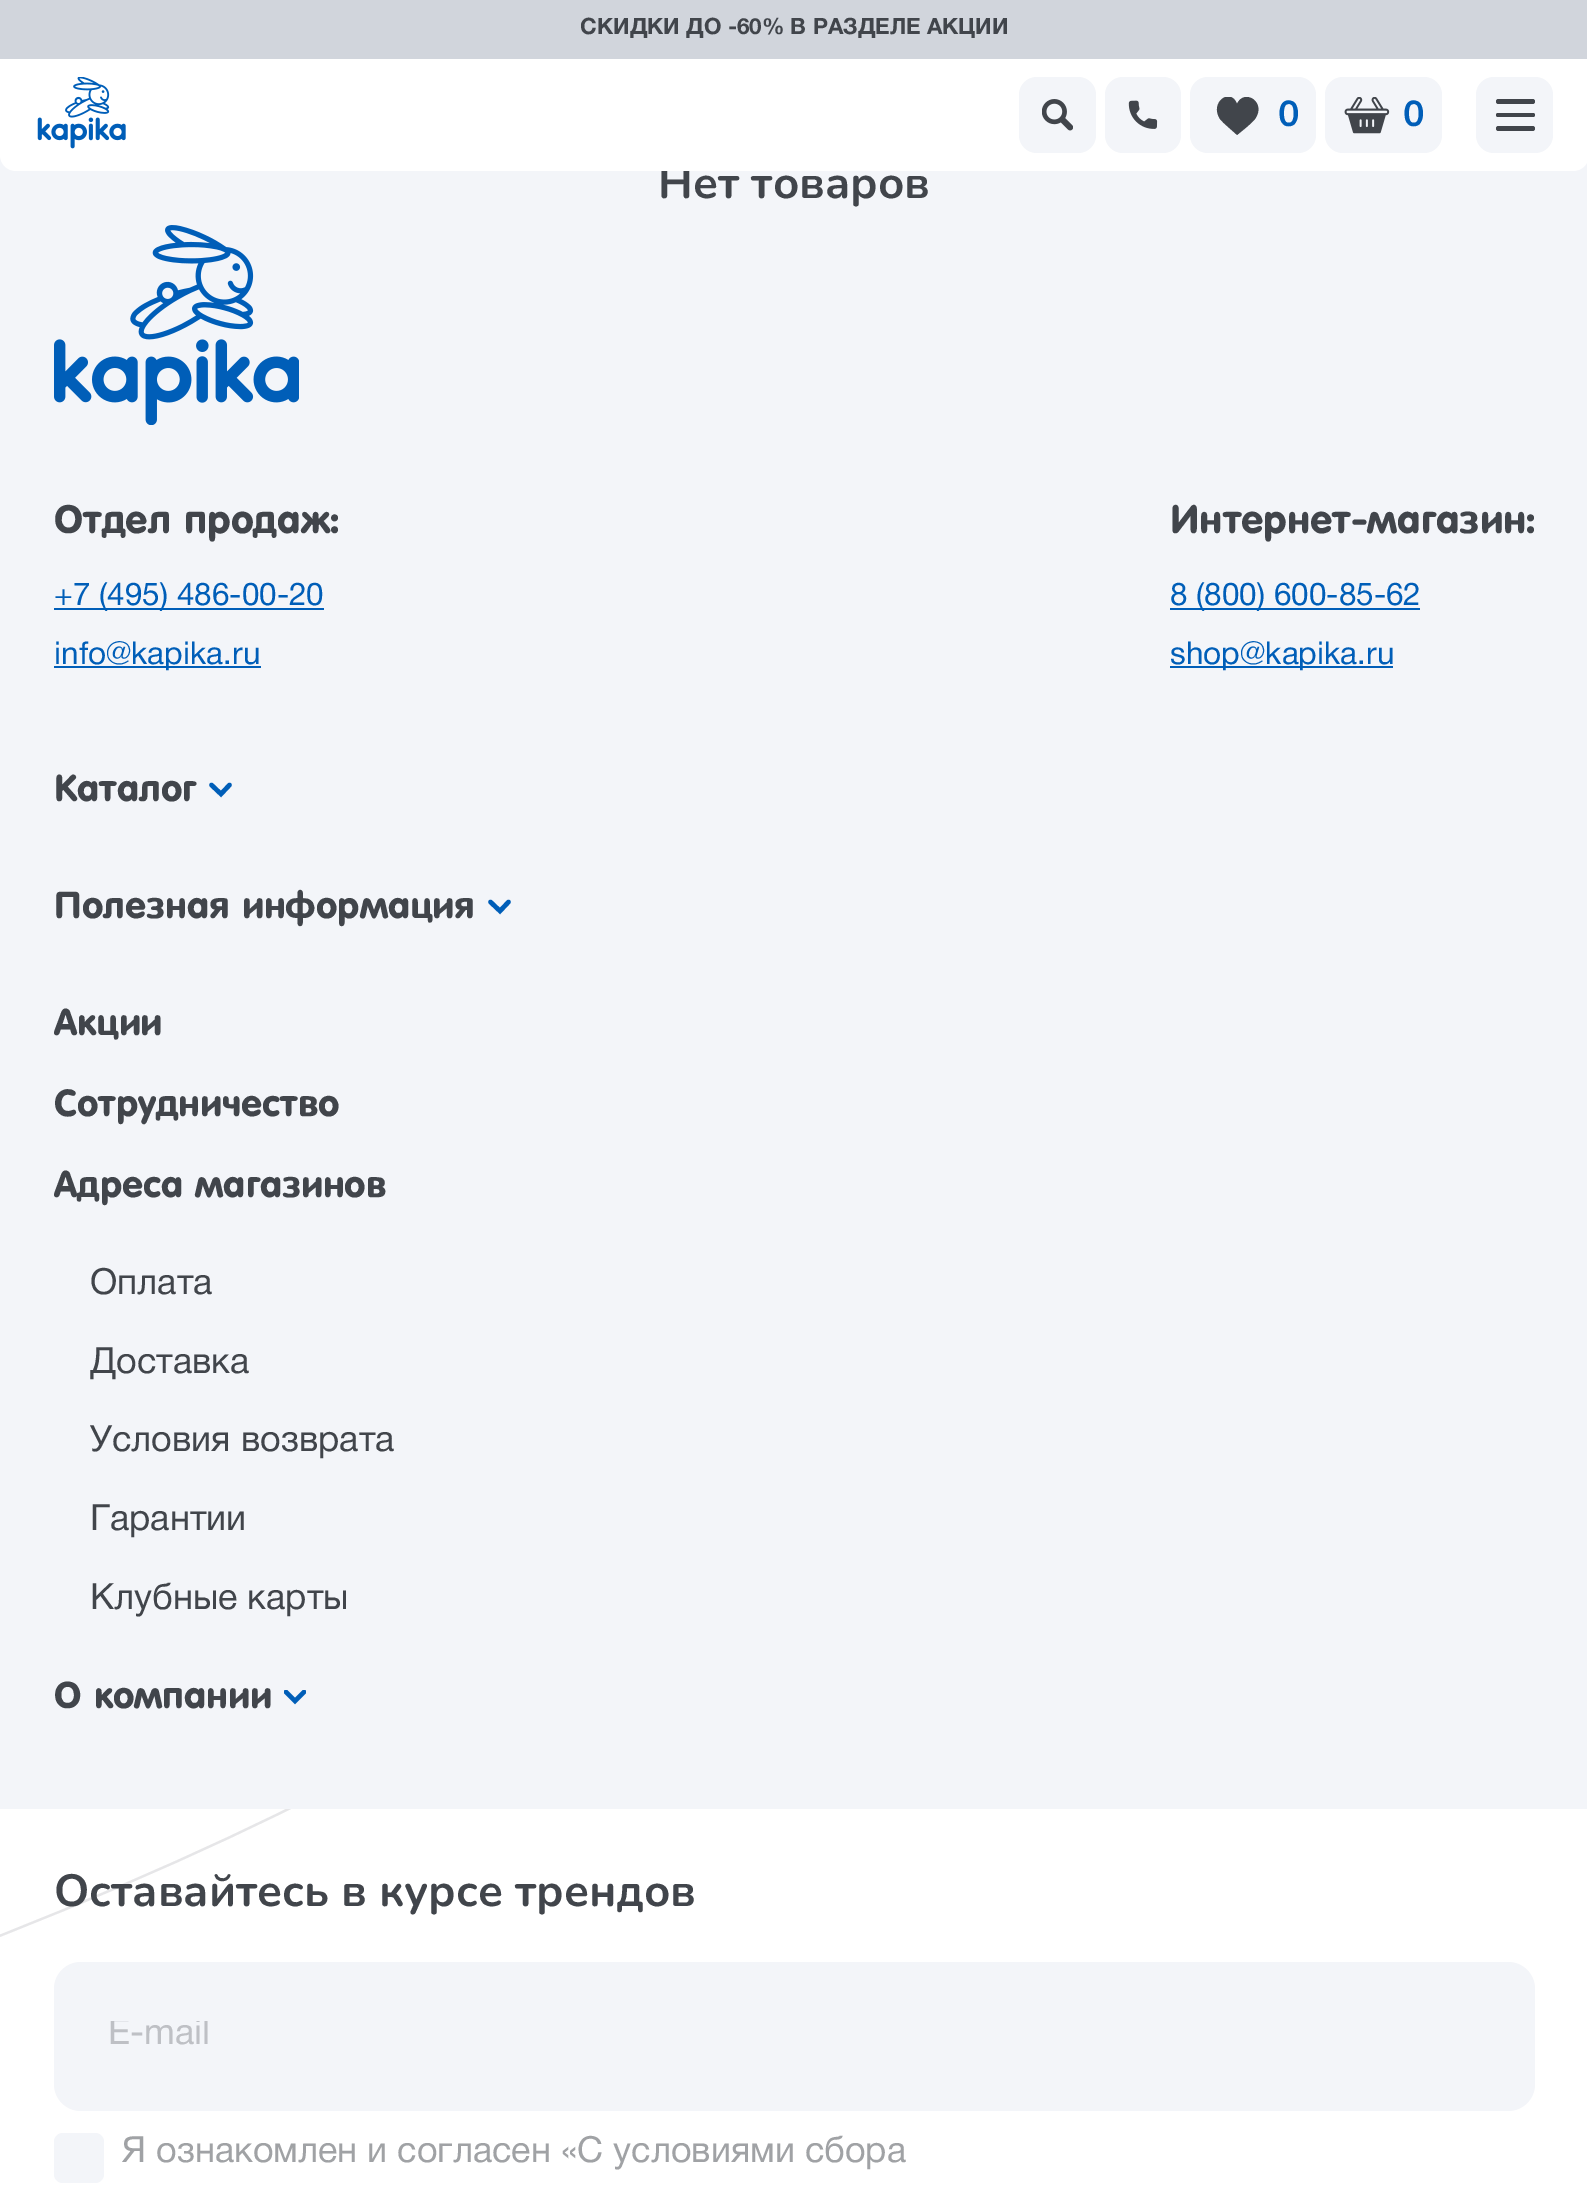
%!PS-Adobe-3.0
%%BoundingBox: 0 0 1587 2196
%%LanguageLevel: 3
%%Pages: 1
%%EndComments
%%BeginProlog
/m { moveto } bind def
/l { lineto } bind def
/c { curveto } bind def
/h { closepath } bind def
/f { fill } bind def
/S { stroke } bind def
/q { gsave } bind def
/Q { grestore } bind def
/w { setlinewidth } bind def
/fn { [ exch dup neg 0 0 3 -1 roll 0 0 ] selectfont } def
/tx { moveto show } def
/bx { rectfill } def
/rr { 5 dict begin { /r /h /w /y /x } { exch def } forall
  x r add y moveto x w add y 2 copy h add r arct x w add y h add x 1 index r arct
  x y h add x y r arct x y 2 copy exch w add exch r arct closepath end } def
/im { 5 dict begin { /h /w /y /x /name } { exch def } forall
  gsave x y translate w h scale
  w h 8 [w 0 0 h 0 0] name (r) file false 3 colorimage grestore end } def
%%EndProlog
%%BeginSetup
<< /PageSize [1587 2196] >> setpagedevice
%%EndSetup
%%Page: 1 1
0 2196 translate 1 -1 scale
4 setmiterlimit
0.953 0.961 0.976 setrgbcolor
0 0 1587 2196 bx
/Nunito-Bold 45 fn
0.255 0.271 0.294 setrgbcolor
(Нет товаров) 658 198 tx
0.953 0.961 0.976 setrgbcolor
661 165 29 6 bx
0.82 0.835 0.863 setrgbcolor
0 0 1587 59 bx
/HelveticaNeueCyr-Bold 22.5 fn
0.255 0.271 0.294 setrgbcolor
(СКИДКИ ДО -60% В РАЗДЕЛЕ АКЦИИ) 580 34 tx
1 setgray
0 59 m 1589 59 l 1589 155 l 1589 164 1582 171 1573 171 c 16 171 l 7 171 0 164 0 155 c h f
(image0.raw) 37 77 89 72 im
0.953 0.961 0.976 setrgbcolor
1019 77 77 76 18 rr f
(image1.raw) 1042 99 31 32 im
1105 77 76 76 18 rr f
(image2.raw) 1128 100 30 29 im
1190 77 126 76 18 rr f
q
1208 97 59 38 rectclip
0.255 0.271 0.294 setrgbcolor
1237 104 m 1244 88 1267 102 1255 119 c 1251 124 1243 130 1237 135 c 1232 130 1224 124 1220 119 c 1209 102 1231 87 1237 104 c h f
Q
/Nunito-Bold 36 fn
0 0.369 0.722 setrgbcolor
(0) 1278 126 tx
0.953 0.961 0.976 setrgbcolor
1325 77 117 76 18 rr f
(image3.raw) 1344 97 46 37 im
0 0.369 0.722 setrgbcolor
(0) 1403 126 tx
0.953 0.961 0.976 setrgbcolor
1476 77 77 76 18 rr f
0.255 0.271 0.294 setrgbcolor
1496 99 39 5 2.5 rr f
1496 113 39 4 2 rr f
1496 126 39 5 2.5 rr f
(image4.raw) 54 225 245 200 im
/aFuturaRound-Bold 38.25 fn
(Отдел продаж:) 54 533 tx
0 0.369 0.722 setrgbcolor
54 608 270 2 bx
/HelveticaNeueCyr-Regular 31.5 fn
(+7 \(495\) 486-00-20) 54 605 tx
54 666 207 2 bx
(info@kapika.ru) 54 664 tx
/aFuturaRound-Bold 38.25 fn
0.255 0.271 0.294 setrgbcolor
(Интернет-магазин:) 1170 533 tx
0 0.369 0.722 setrgbcolor
1170 608 250 2 bx
/HelveticaNeueCyr-Regular 31.5 fn
(8 \(800\) 600-85-62) 1170 605 tx
1170 666 223 2 bx
(shop@kapika.ru) 1170 664 tx
/aFuturaRound-Bold 36 fn
0.255 0.271 0.294 setrgbcolor
(Каталог) 54 801 tx
0 0.369 0.722 setrgbcolor
4.5 w
1 setlinecap
211.5 785 m 221 794 l 229.5 785 l S
0.255 0.271 0.294 setrgbcolor
(Полезная информация) 54 918 tx
0 0.369 0.722 setrgbcolor
490.5 902 m 500 911 l 508.5 902 l S
0.255 0.271 0.294 setrgbcolor
(Акции) 54 1035 tx
(Сотрудничество) 54 1116 tx
(Адреса магазинов) 54 1197 tx
/HelveticaNeueCyr-Regular 36 fn
(Оплата) 90 1294 tx
(Доставка) 90 1373 tx
(Условия возврата) 90 1451 tx
(Гарантии) 90 1530 tx
(Клубные карты) 90 1609 tx
/aFuturaRound-Bold 36 fn
(О компании) 54 1708 tx
q
284 1690 22 16 rectclip
0 0.369 0.722 setrgbcolor
286 1692 m 295 1701 l 304 1692 l S
Q
1 setgray
0 1809 1587 387 bx
q
0 1809 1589 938 rectclip
0.902 0.902 0.91 setrgbcolor
2.2 w
0 setlinecap
-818.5 1495 m -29 1279 659 1247 718 1424 c 777 1600.5 184.5 1919 -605 2135.5 c -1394.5 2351.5 -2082.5 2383.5 -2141.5 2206.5 c -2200.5 2029.5 -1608 1711 -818.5 1495 c h S
Q
/Nunito-Bold 45 fn
0.255 0.271 0.294 setrgbcolor
(Оставайтесь в курсе трендов) 54 1906 tx
0.953 0.961 0.976 setrgbcolor
54 1962 1481 149 27 rr f
q
108 2021 1373 33 rectclip
/HelveticaNeueCyr-Regular 36 fn
0.745 0.753 0.773 setrgbcolor
(E-mail) 108 2044 tx
Q
54 2133 50 50 9 rr f
/HelveticaNeueCyr-Regular 36 fn
0.627 0.635 0.647 setrgbcolor
(Я ознакомлен и согласен «С условиями сбора) 122 2162 tx
showpage
%%EOF
